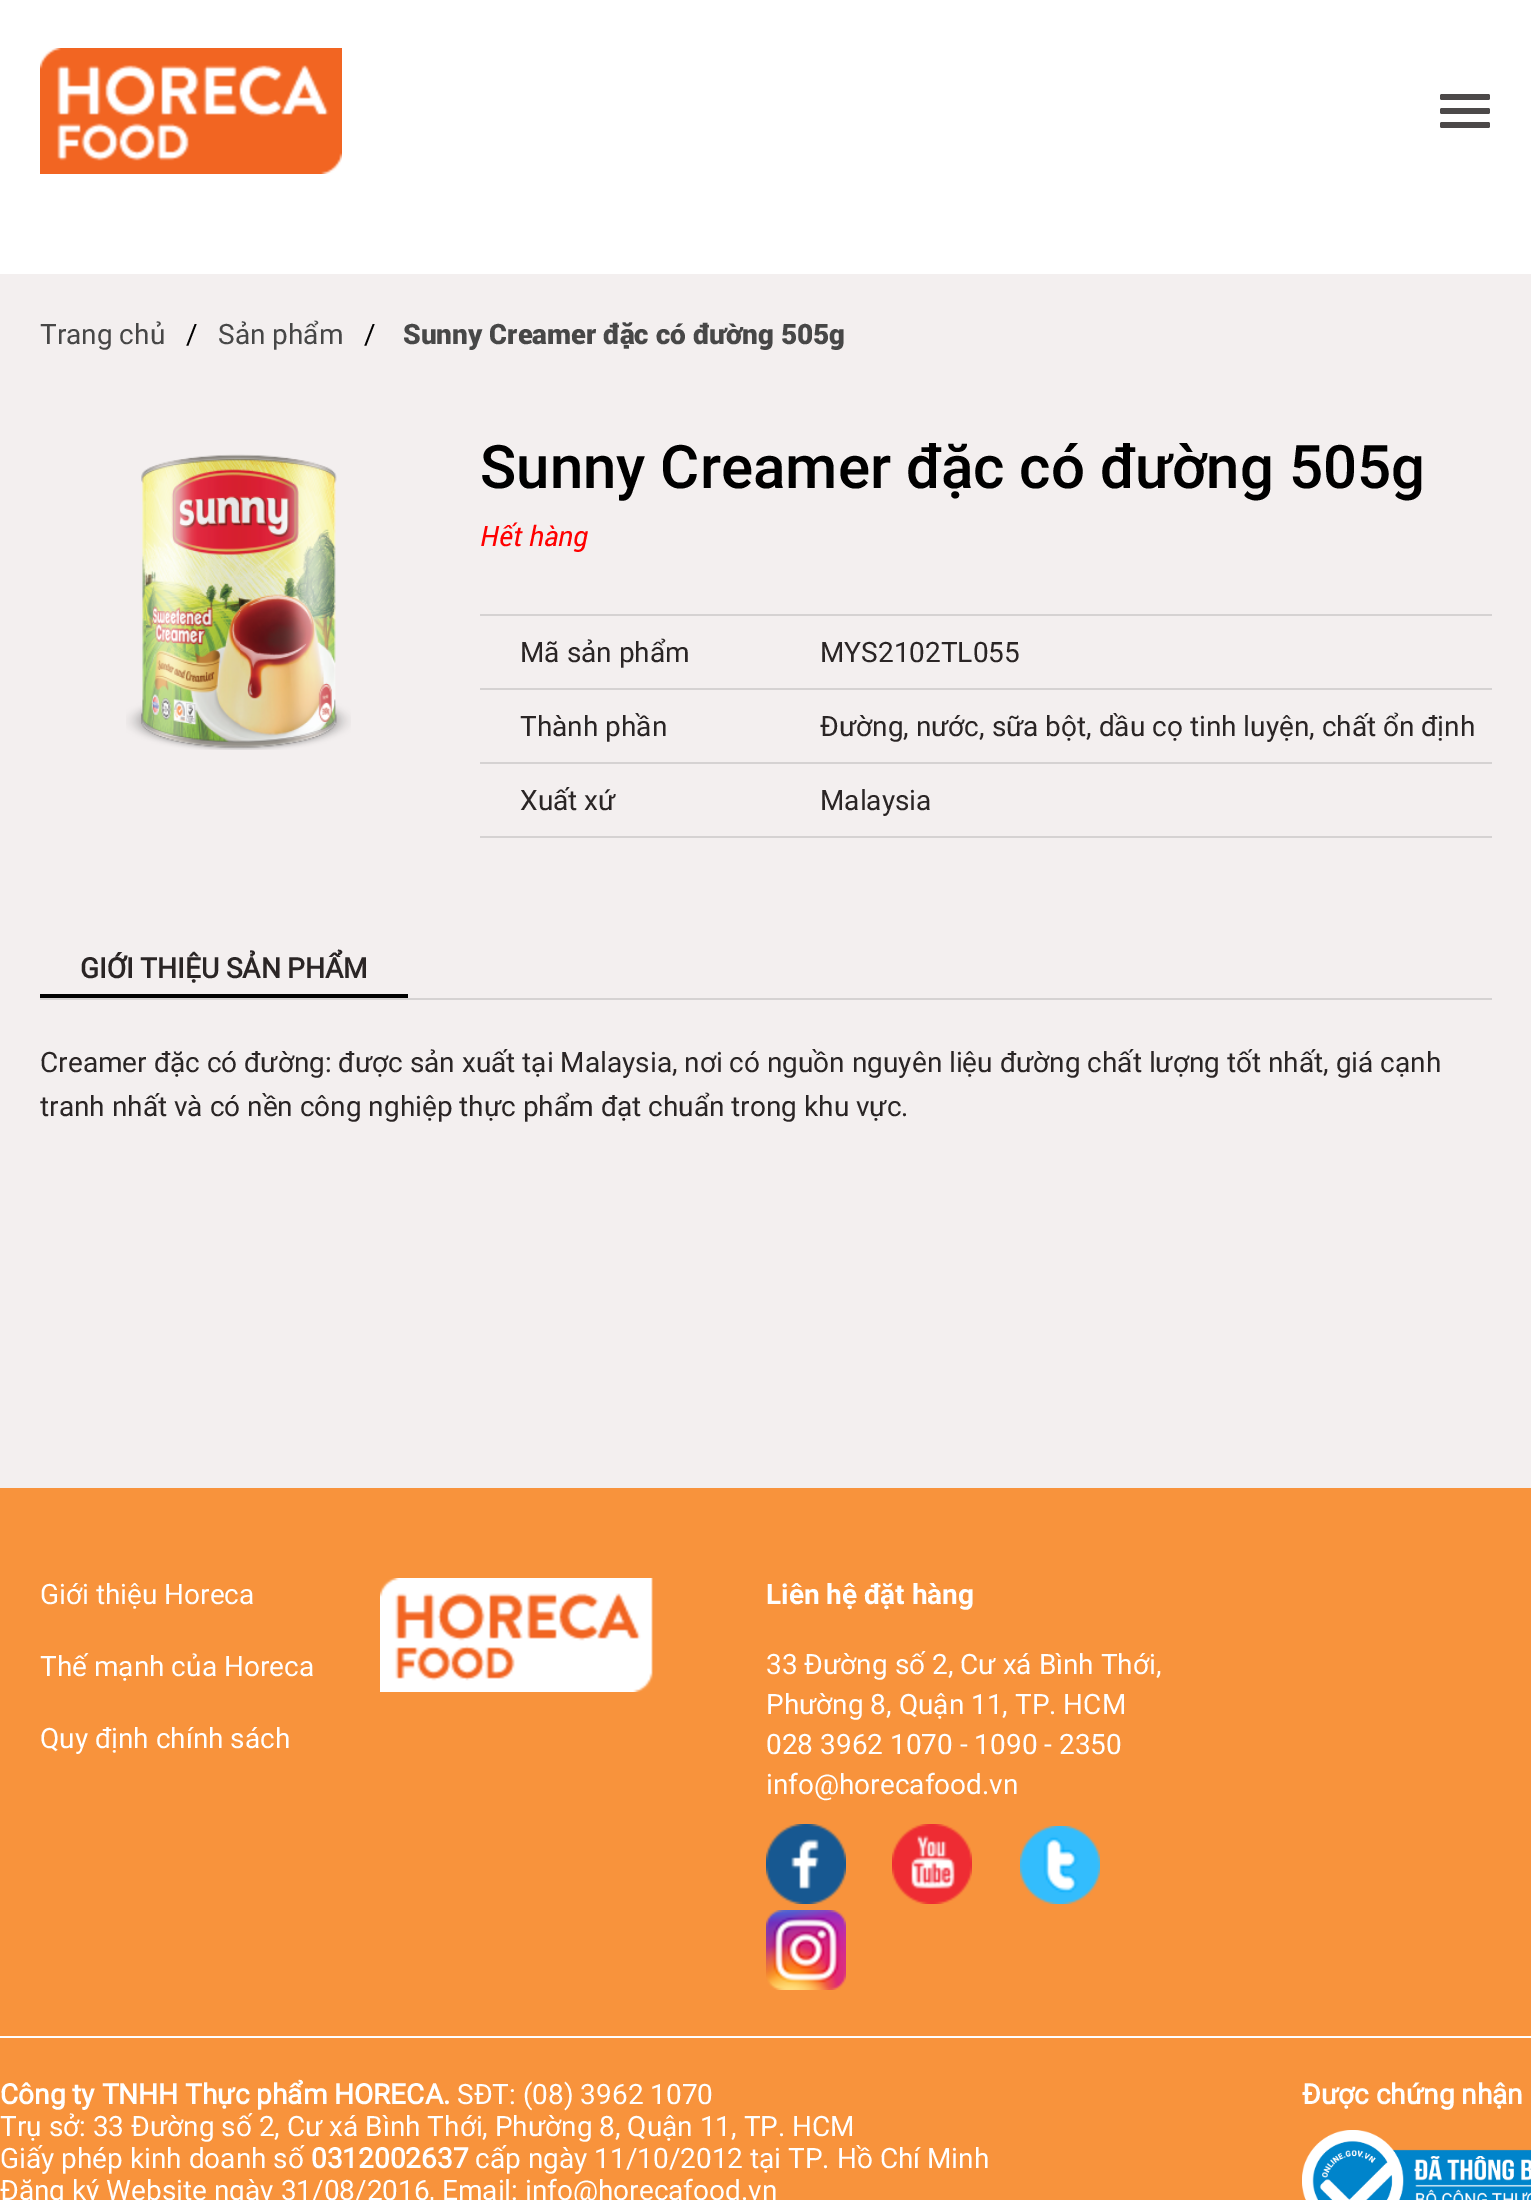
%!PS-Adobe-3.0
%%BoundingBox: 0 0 1531 2200
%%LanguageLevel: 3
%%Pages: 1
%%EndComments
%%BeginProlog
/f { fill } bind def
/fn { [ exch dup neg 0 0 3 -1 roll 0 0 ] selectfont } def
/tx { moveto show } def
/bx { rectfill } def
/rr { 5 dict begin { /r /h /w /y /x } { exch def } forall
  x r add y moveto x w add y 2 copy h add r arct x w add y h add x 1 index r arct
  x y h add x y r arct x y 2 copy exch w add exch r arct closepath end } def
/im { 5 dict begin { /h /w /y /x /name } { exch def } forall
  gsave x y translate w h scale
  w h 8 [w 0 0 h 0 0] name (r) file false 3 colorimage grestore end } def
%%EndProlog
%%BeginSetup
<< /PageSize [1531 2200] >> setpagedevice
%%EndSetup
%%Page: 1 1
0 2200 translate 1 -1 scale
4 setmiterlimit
1 setgray
0 0 1531 2200 bx
(image0.raw) 40 48 302 126 im
0.298 0.286 0.286 setrgbcolor
1440 94 50 6 2 rr f
1440 108 50 6 2 rr f
1440 122 50 6 2 rr f
0.953 0.937 0.937 setrgbcolor
0 274 1531 1214 bx
/Roboto-Regular 28 fn
0.278 setgray
(Trang chủ) 40 344 tx
0 setgray
(/) 186 344 tx
0.278 setgray
(Sản phẩm) 218 344 tx
0 setgray
(/) 364 344 tx
/Roboto-Black 28 fn
0.278 setgray
(Sunny Creamer đặc có đường 505g) 403 344 tx
(image1.raw) 126 454 225 296 im
/Roboto-Medium 60 fn
0 setgray
(Sunny Creamer đặc có đường 505g) 480 488 tx
/Roboto-Italic 28 fn
1 0 0 setrgbcolor
(Hết hàng) 480 546 tx
0.835 0.824 0.824 setrgbcolor
480 614 1012 2 bx
480 688 1012 2 bx
/Roboto-Regular 28 fn
0.165 0.145 0.145 setrgbcolor
(Mã sản phẩm) 520 662 tx
(MYS2102TL055) 820 662 tx
0.835 0.824 0.824 setrgbcolor
480 762 1012 2 bx
0.165 0.145 0.145 setrgbcolor
(Thành phần) 520 736 tx
(Đường, nước, sữa bột, dầu cọ tinh luyện, chất ổn định) 820 736 tx
0.835 0.824 0.824 setrgbcolor
480 836 1012 2 bx
0.165 0.145 0.145 setrgbcolor
(Xuất xứ) 520 810 tx
(Malaysia) 820 810 tx
0.835 0.824 0.824 setrgbcolor
40 998 1452 2 bx
/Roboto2-Bold 28 fn
0.165 0.145 0.145 setrgbcolor
(GIỚI THIỆU SẢN PHẨM) 80 978 tx
0 setgray
40 994 368 4 bx
/Roboto-Regular 28 fn
0.165 0.145 0.145 setrgbcolor
(Creamer đặc có đường: được sản xuất tại Malaysia, nơi có nguồn nguyên liệu đường chất lượng tốt nhất, giá cạnh) 40 1072 tx
(tranh nhất và có nền công nghiệp thực phẩm đạt chuẩn trong khu vực.) 40 1116 tx
0.973 0.576 0.235 setrgbcolor
0 1488 1531 712 bx
1 setgray
(Giới thiệu Horeca) 40 1604 tx
(Thế mạnh của Horeca) 40 1676 tx
(Quy định chính sách) 40 1748 tx
(image2.raw) 380 1578 273 114 im
/Roboto-Bold 28 fn
(Liên hệ đặt hàng) 766 1604 tx
/Roboto-Regular 28 fn
(33 Đường số 2, Cư xá Bình Thới,) 766 1674 tx
(Phường 8, Quận 11, TP. HCM) 766 1714 tx
(028 3962 1070 - 1090 - 2350) 766 1754 tx
(info@horecafood.vn) 766 1794 tx
(image3.raw) 766 1824 80 80 im
(image4.raw) 892 1824 80 80 im
(image5.raw) 1020 1826 80 78 im
(image6.raw) 766 1910 80 80 im
0 2036 1531 2 bx
/Roboto2-Bold 28 fn
(Công ty TNHH Thực phẩm HORECA.) 0 2104 tx
/Roboto-Regular 28 fn
(SĐT: \(08\) 3962 1070) 457 2104 tx
(Trụ sở: 33 Đường số 2, Cư xá Bình Thới, Phường 8, Quận 11, TP. HCM) 0 2136 tx
(Giấy phép kinh doanh số) 0 2168 tx
/Roboto2-Bold 28 fn
(0312002637) 311 2168 tx
/Roboto-Regular 28 fn
(cấp ngày 11/10/2012 tại TP. Hồ Chí Minh) 475 2168 tx
(Đăng ký Website ngày 31/08/2016, Email: info@horecafood.vn) 0 2200 tx
/Roboto2-Bold 28 fn
(Được chứng nhận) 1302 2104 tx
(image7.raw) 1302 2130 229 70 im
showpage
%%EOF
